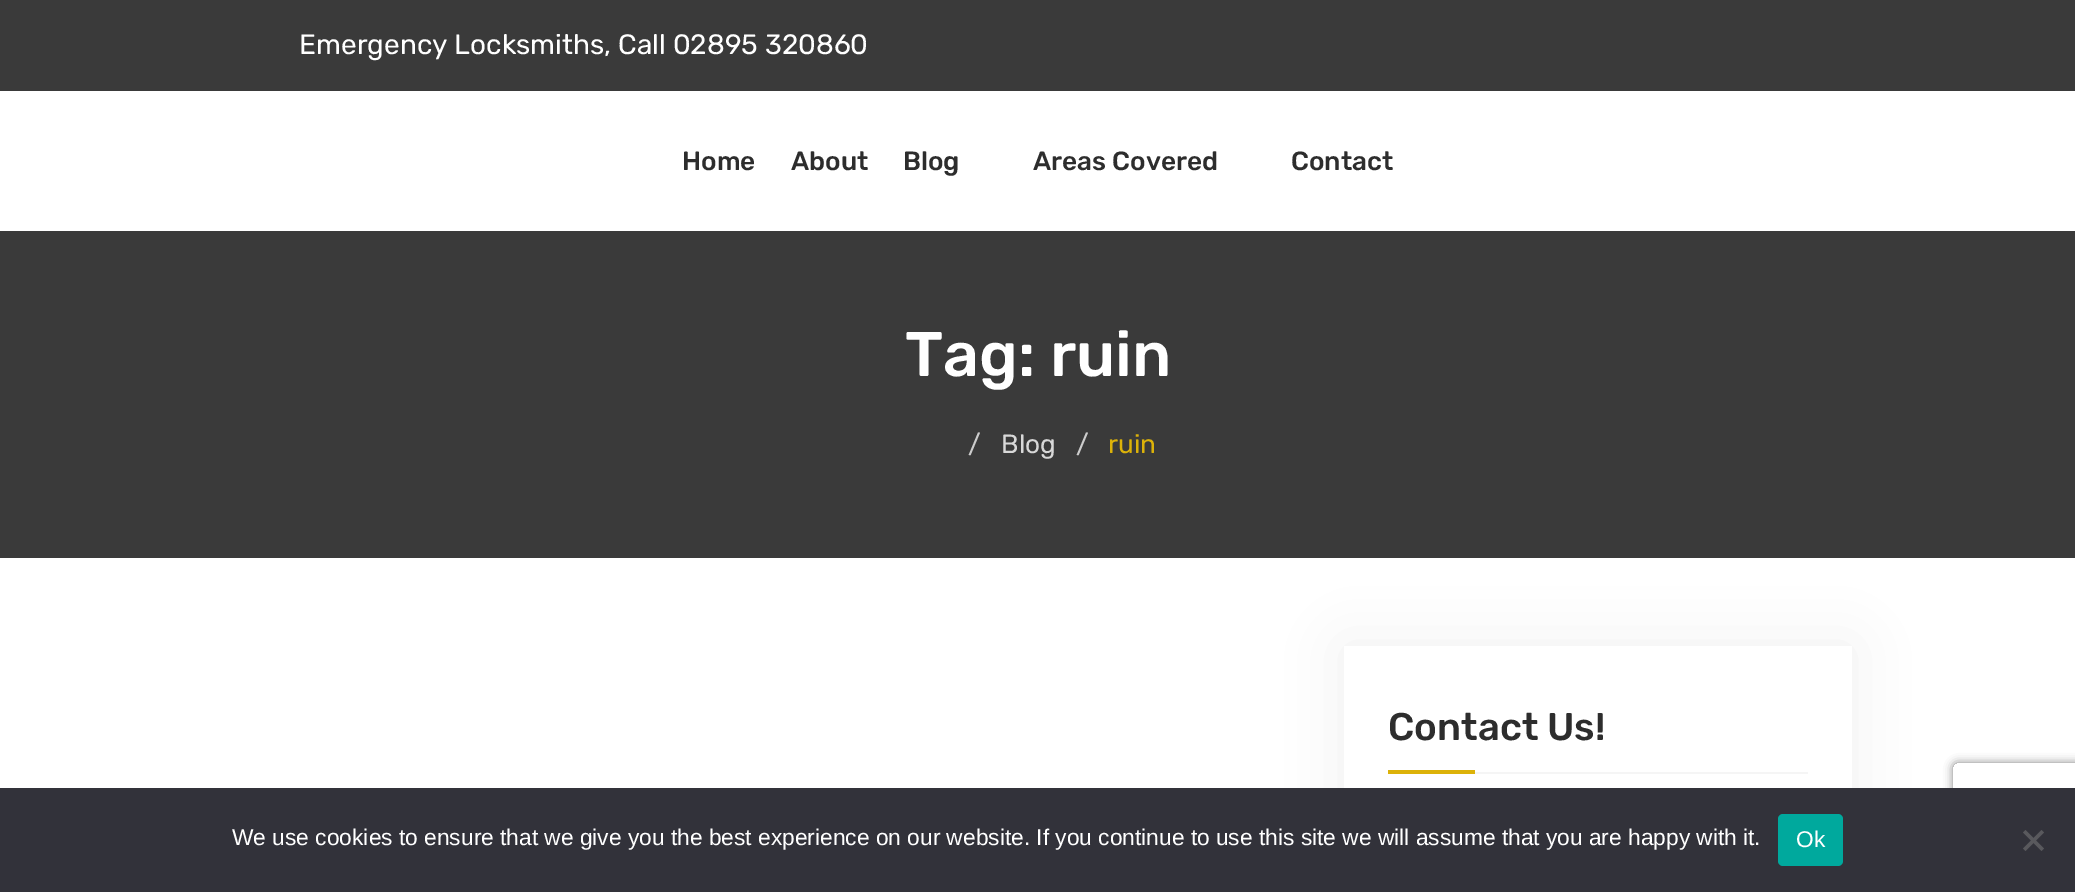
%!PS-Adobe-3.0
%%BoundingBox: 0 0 2075 892
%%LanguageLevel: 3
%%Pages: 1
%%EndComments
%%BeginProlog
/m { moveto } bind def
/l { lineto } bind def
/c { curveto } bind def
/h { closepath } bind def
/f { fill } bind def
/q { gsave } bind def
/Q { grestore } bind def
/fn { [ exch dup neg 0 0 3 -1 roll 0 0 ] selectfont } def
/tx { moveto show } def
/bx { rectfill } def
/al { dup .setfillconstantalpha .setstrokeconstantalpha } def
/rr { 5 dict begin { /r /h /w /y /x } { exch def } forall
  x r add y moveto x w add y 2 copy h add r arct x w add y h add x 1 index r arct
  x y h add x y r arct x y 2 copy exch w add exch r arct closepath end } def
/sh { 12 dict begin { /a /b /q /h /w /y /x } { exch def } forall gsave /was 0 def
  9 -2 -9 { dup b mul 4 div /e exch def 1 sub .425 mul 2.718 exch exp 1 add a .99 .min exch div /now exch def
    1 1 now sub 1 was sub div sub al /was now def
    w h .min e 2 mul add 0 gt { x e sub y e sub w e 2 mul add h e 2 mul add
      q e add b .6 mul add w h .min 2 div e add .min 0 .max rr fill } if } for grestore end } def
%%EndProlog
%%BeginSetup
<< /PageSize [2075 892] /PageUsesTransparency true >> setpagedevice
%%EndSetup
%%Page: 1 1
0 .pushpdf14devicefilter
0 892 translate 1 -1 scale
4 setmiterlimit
1 setgray
0 0 2075 892 bx
0.227 setgray
0 0 2075 91 bx
/Rubik-Regular 28 fn
1 setgray
(Emergency Locksmiths, Call 02895 320860) 299 54 tx
/Rubik-Medium 26.25 fn
0.176 setgray
(Home) 682 170 tx
(About) 791 170 tx
(Blog) 903 170 tx
(Areas Covered) 1033 170 tx
(Contact) 1291 170 tx
0.227 setgray
0 231 2075 327 bx
/Rubik-Medium 63 fn
1 setgray
(Tag: ruin) 905 376 tx
/Rubik-Regular 26.25 fn
0.8 setgray
(/) 968 453 tx
0.847 setgray
(Blog) 1001 453 tx
0.8 setgray
(/) 1076 453 tx
0.863 0.698 0.035 setrgbcolor
(ruin) 1108 453 tx
0.937 setgray
1344 646 508 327 0 27 1 sh
1 setgray
1344 646 508 142 bx
0.961 setgray
1475 772 333 2 bx
/Rubik-Medium 38.5 fn
0.176 setgray
(Contact Us!) 1388 740 tx
0.863 0.698 0.035 setrgbcolor
1388 770 87 4 bx
q
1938 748 m 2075 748 l 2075 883 l 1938 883 l h 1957 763 m 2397 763 l 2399 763 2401 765 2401 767 c 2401 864 l 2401 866 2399 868 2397 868 c 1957 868 l 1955 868 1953 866 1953 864 c 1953 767 l 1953 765 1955 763 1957 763 c h eoclip newpath
0.502 setgray
1953 763 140 105 4 4.5 1 sh
Q
0.196 0.196 0.227 setrgbcolor
0 788 2075 104 bx
/LiberationSans-Regular 22.75 fn
1 setgray
(We use cookies to ensure that we give you the best experience on our website. If you continue to use this site we will assume that you are happy with it.) 232 845 tx
0 0.663 0.616 setrgbcolor
1778 814 65 52 5 rr f
1 setgray
(Ok) 1796 847 tx
0.349 0.349 0.365 setrgbcolor
2041.5 830 m 2044 832.5 l 2025.5 851 l 2023 848.5 l h f
2023 832.5 m 2025.5 830 l 2044 848.5 l 2041.5 851 l h f
.poppdf14devicefilter showpage
%%EOF
